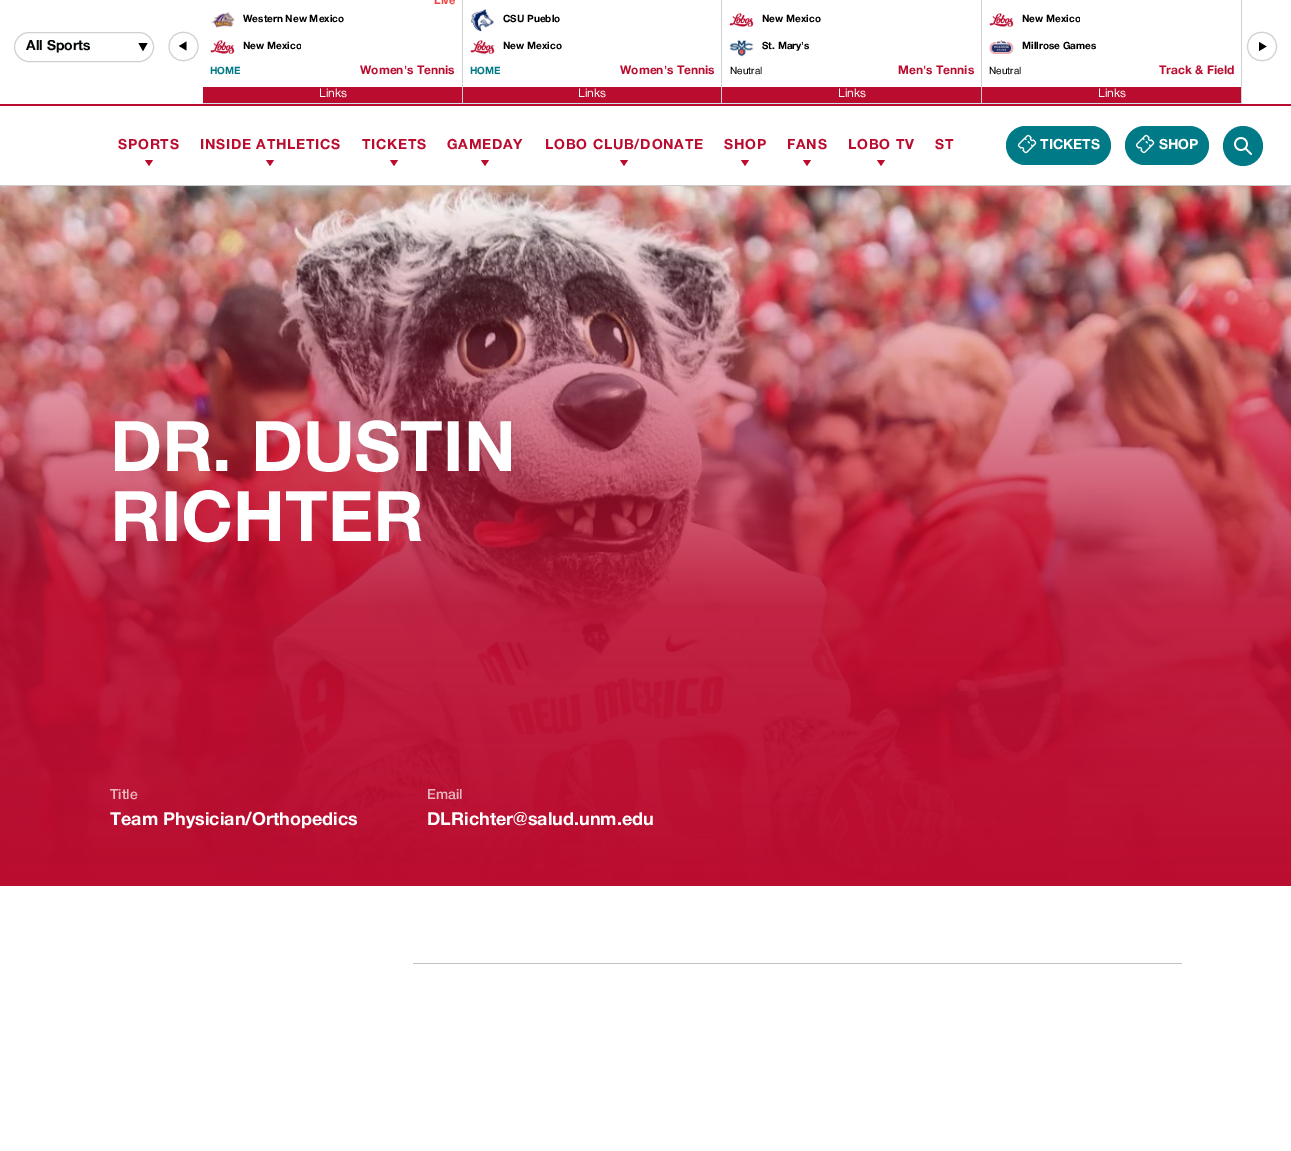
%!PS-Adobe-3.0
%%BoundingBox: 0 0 1291 1151
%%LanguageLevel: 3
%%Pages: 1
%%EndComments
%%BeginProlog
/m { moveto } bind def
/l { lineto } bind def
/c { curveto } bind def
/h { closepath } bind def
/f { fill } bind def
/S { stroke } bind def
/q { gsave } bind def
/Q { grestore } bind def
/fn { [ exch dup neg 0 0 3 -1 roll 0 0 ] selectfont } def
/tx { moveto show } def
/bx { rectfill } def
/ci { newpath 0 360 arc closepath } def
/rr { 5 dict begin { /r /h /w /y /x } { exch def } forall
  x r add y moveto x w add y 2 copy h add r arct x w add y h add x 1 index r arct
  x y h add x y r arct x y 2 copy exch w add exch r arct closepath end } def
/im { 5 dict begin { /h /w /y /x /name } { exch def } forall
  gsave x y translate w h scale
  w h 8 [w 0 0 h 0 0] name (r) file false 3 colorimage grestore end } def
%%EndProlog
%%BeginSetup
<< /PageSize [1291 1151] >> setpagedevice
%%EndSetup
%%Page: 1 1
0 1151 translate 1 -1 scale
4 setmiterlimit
1 setgray
0 0 1291 1151 bx
0.729 0.047 0.184 setrgbcolor
0 104 1291 2 bx
0 setgray
138.5 43 m 147.5 43 l 143 51 l f
0.816 0.82 0.824 setrgbcolor
14.5 32.5 139 29 14.5 rr S
q
26 40 103 14 rectclip
/HelveticaNeue-Bold 14 fn
0.016 0.027 0.027 setrgbcolor
(All Sports) 26 50 tx
Q
0.8 0.894 0.906 setrgbcolor
203 103 1039 1 bx
0 setgray
186.5 41.5 m 186.5 50.5 l 179 46 l f
0.816 0.82 0.824 setrgbcolor
198 46.5 m 198 65.5 169 65.5 169 46.5 c 169 27.5 198 27.5 198 46.5 c h S
462 0 1 103 bx
/HelveticaNeue-Bold 11 fn
0.937 0.267 0.267 setrgbcolor
(Live) 434 4 tx
(image0.raw) 210 12 25 16 im
/HelveticaNeue-Bold 10 fn
0 setgray
(Western New Mexico) 243 22 tx
(image1.raw) 210 40 25 14 im
q
243 40 58 14 rectclip
(New Mexico) 243 49 tx
Q
0 0.478 0.525 setrgbcolor
(HOME) 210 74 tx
/HelveticaNeue-Bold 12 fn
0.729 0.047 0.184 setrgbcolor
(Women's Tennis) 360 74 tx
203 87 259 16 bx
/HelveticaNeue-Regular 12 fn
1 setgray
(Links) 319 97 tx
0.816 0.82 0.824 setrgbcolor
721 0 1 103 bx
(image2.raw) 471 9 23 23 im
/HelveticaNeue-Bold 10 fn
0 setgray
(CSU Pueblo) 503 22 tx
(image1.raw) 470 40 25 14 im
(New Mexico) 503 49 tx
0 0.478 0.525 setrgbcolor
(HOME) 470 74 tx
/HelveticaNeue-Bold 12 fn
0.729 0.047 0.184 setrgbcolor
(Women's Tennis) 620 74 tx
463 87 258 16 bx
/HelveticaNeue-Regular 12 fn
1 setgray
(Links) 578 97 tx
0.816 0.82 0.824 setrgbcolor
981 0 1 103 bx
(image3.raw) 729 13 25 14 im
/HelveticaNeue-Bold 10 fn
0 setgray
(New Mexico) 762 22 tx
(image4.raw) 729 39 25 18 im
(St. Mary's) 762 49 tx
/HelveticaNeue-Regular 10 fn
(Neutral) 730 74 tx
/HelveticaNeue-Bold 12 fn
0.729 0.047 0.184 setrgbcolor
(Men's Tennis) 898 74 tx
722 87 259 16 bx
/HelveticaNeue-Regular 12 fn
1 setgray
(Links) 838 97 tx
0.816 0.82 0.824 setrgbcolor
1241 0 1 103 bx
(image3.raw) 989 13 25 14 im
q
1022 13 58 14 rectclip
/HelveticaNeue-Bold 10 fn
0 setgray
(New Mexico) 1022 22 tx
Q
(image5.raw) 989 40 25 14 im
/HelveticaNeue-Bold 10 fn
0 setgray
(Millrose Games) 1022 49 tx
/HelveticaNeue-Regular 10 fn
(Neutral) 989 74 tx
/HelveticaNeue-Bold 12 fn
0.729 0.047 0.184 setrgbcolor
(Track & Field) 1159 74 tx
982 87 259 16 bx
/HelveticaNeue-Regular 12 fn
1 setgray
(Links) 1098 97 tx
0 setgray
1259 51 m 1259 42 l 1266.5 46.5 l f
0.816 0.82 0.824 setrgbcolor
1247.5 46.5 m 1247.5 27.5 1276.5 27.5 1276.5 46.5 c 1276.5 65.5 1247.5 65.5 1247.5 46.5 c h S
0.8 setgray
0 185 1291 1 bx
/HelveticaNeue-Bold 14 fn
0.729 0.047 0.184 setrgbcolor
118 149 m 0.75 0 (SPORTS) ashow
145 160 m 153 160 l 149 166 l h f
200 149 m 0.75 0 (INSIDE ATHLETICS) ashow
266 160 m 274 160 l 270 166 l h f
362 149 m 0.75 0 (TICKETS) ashow
390 160 m 398 160 l 394 166 l h f
447 149 m 0.75 0 (GAMEDAY) ashow
481 160 m 489 160 l 485 166 l h f
545 149 m 0.75 0 (LOBO CLUB/DONATE) ashow
620 160 m 628 160 l 624 166 l h f
724 149 m 0.75 0 (SHOP) ashow
741 160 m 749 160 l 745 166 l h f
787 149 m 0.75 0 (FANS) ashow
803 160 m 811 160 l 807 166 l h f
848 149 m 0.75 0 (LOBO TV) ashow
877 160 m 885 160 l 881 166 l h f
935 149 m 0.75 0 (ST) ashow
0 0.478 0.525 setrgbcolor
1006 126 105 39 19.5 rr f
(image6.raw) 1017 134 20 20 im
1 setgray
(TICKETS) 1040 149 tx
0 0.478 0.525 setrgbcolor
1125 126 84 39 19.5 rr f
(image6.raw) 1135 134 20 20 im
1 setgray
(SHOP) 1159 149 tx
0 0.478 0.525 setrgbcolor
1243 146 20 ci f
(image7.raw) 1234 137 18 18 im
(image8.raw) 0 186 1291 700 im
/HelveticaNeue-Bold 70 fn
1 setgray
(DR. DUSTIN) 110 471 tx
(RICHTER) 110 541 tx
/HelveticaNeue-Medium 14 fn
0.922 0.722 0.761 setrgbcolor
(Title) 110 799 tx
/HelveticaNeue-Bold 18 fn
1 setgray
(Team Physician/Orthopedics) 110 825 tx
/HelveticaNeue-Medium 14 fn
0.922 0.722 0.761 setrgbcolor
(Email) 427 799 tx
/HelveticaNeue-Bold 18 fn
1 setgray
(DLRichter@salud.unm.edu) 427 825 tx
0.757 0.761 0.765 setrgbcolor
413 963 769 1 bx
showpage
%%EOF
